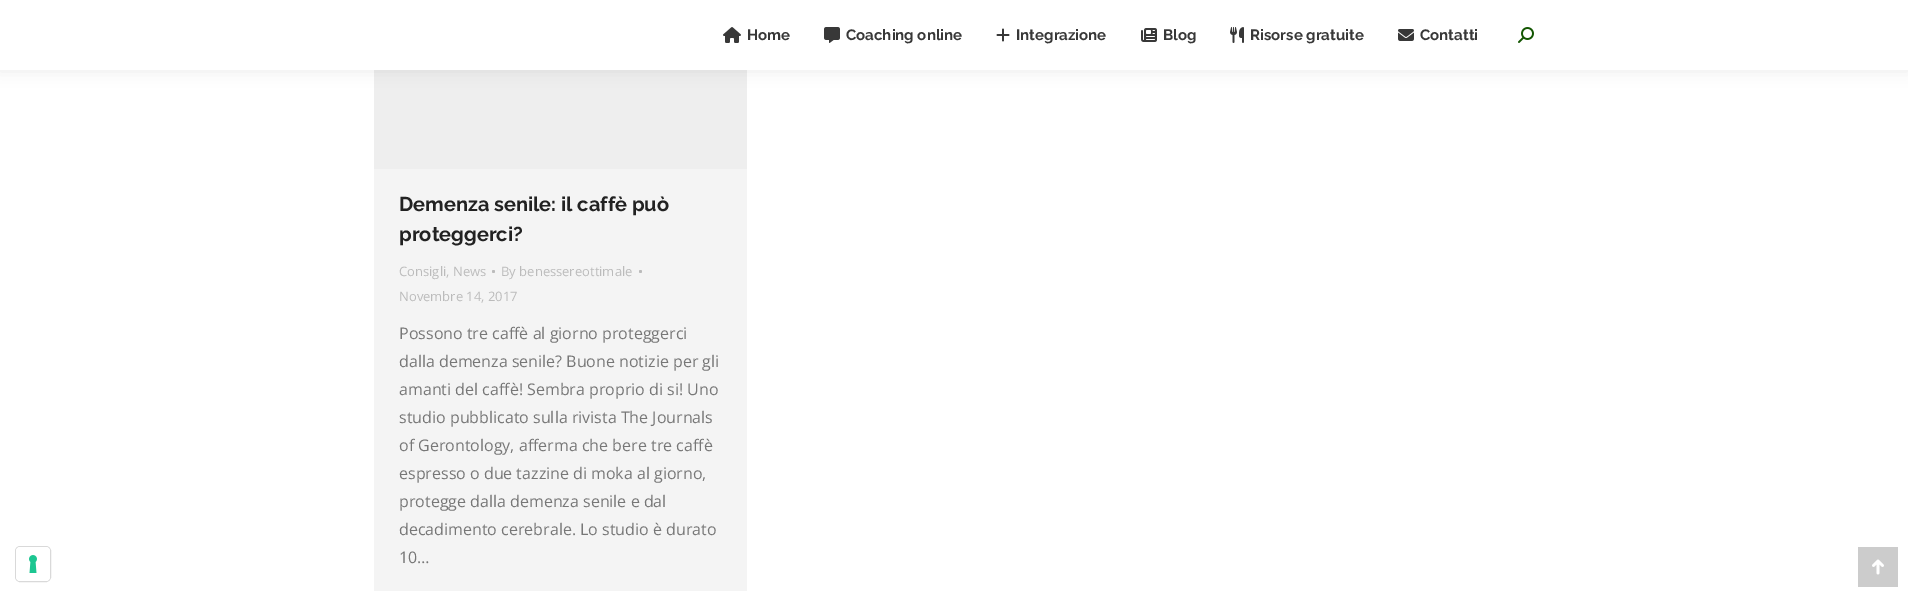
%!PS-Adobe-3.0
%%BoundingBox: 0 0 1908 597
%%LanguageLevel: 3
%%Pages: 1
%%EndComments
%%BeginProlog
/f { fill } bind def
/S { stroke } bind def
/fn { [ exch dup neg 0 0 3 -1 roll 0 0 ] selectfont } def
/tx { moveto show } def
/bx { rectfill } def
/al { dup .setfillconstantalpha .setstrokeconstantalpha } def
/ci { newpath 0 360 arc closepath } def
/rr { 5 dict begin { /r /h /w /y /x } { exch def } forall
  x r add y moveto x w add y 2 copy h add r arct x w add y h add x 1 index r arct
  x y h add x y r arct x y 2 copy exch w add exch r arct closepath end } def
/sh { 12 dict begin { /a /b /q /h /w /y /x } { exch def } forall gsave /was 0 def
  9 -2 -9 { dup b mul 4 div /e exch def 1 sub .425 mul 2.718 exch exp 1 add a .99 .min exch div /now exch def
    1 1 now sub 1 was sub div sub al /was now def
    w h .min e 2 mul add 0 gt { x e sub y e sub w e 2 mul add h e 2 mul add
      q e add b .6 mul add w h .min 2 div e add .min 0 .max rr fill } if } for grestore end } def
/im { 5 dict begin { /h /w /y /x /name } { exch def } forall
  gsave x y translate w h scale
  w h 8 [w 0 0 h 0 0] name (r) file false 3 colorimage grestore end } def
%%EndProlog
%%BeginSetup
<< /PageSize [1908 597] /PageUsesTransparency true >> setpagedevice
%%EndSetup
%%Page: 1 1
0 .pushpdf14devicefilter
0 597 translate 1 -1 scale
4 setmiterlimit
1 setgray
0 0 1908 597 bx
0.933 setgray
374 70 373 99 bx
0 setgray
-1 -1 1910 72 0 7.5 0.07 sh
1 setgray
0 0 1908 70 bx
(image0.raw) 723 27 18 16 im
/Raleway-Bold 15 fn
0.22 setgray
(Home) 747 40 tx
(image1.raw) 824 27 16 16 im
(Coaching online) 846 40 tx
(image2.raw) 996 28 14 14 im
(Integrazione) 1016 40 tx
(image3.raw) 1141 28 16 14 im
(Blog) 1163 40 tx
(image4.raw) 1230 27 14 16 im
(Risorse gratuite) 1250 40 tx
(image5.raw) 1398 29 16 12 im
(Contatti) 1420 40 tx
(image6.raw) 1518 27 16 16 im
0.851 setgray
15.5 546.5 35 35 4.5 rr S
1 setgray
16 547 34 34 4 rr f
(image7.raw) 29 555 8 18 im
0.957 setgray
374 169 373 422 bx
/Raleway-Bold 20 fn
0.133 setgray
(Demenza senile: il caffè può) 399 211 tx
(proteggerci?) 399 241 tx
/OpenSans-Regular 13 fn
0.733 setgray
(Consigli, News) 399 276 tx
493.5 271.5 1.5 ci f
(By benessereottimale) 501 276 tx
640.5 271.5 1.5 ci f
(Novembre 14, 2017) 399 301 tx
/OpenSans-Regular 16 fn
0.467 setgray
(Possono tre caffè al giorno proteggerci) 399 339 tx
(dalla demenza senile? Buone notizie per gli) 399 367 tx
(amanti del caffè! Sembra proprio di si! Uno) 399 395 tx
(studio pubblicato sulla rivista The Journals) 399 423 tx
(of Gerontology, afferma che bere tre caffè) 399 451 tx
(espresso o due tazzine di moka al giorno,) 399 479 tx
(protegge dalla demenza senile e dal) 399 507 tx
(decadimento cerebrale. Lo studio è durato) 399 535 tx
(10…) 399 563 tx
0.8 setgray
1858 547 40 40 bx
(image8.raw) 1872 559 12 16 im
.poppdf14devicefilter showpage
%%EOF
